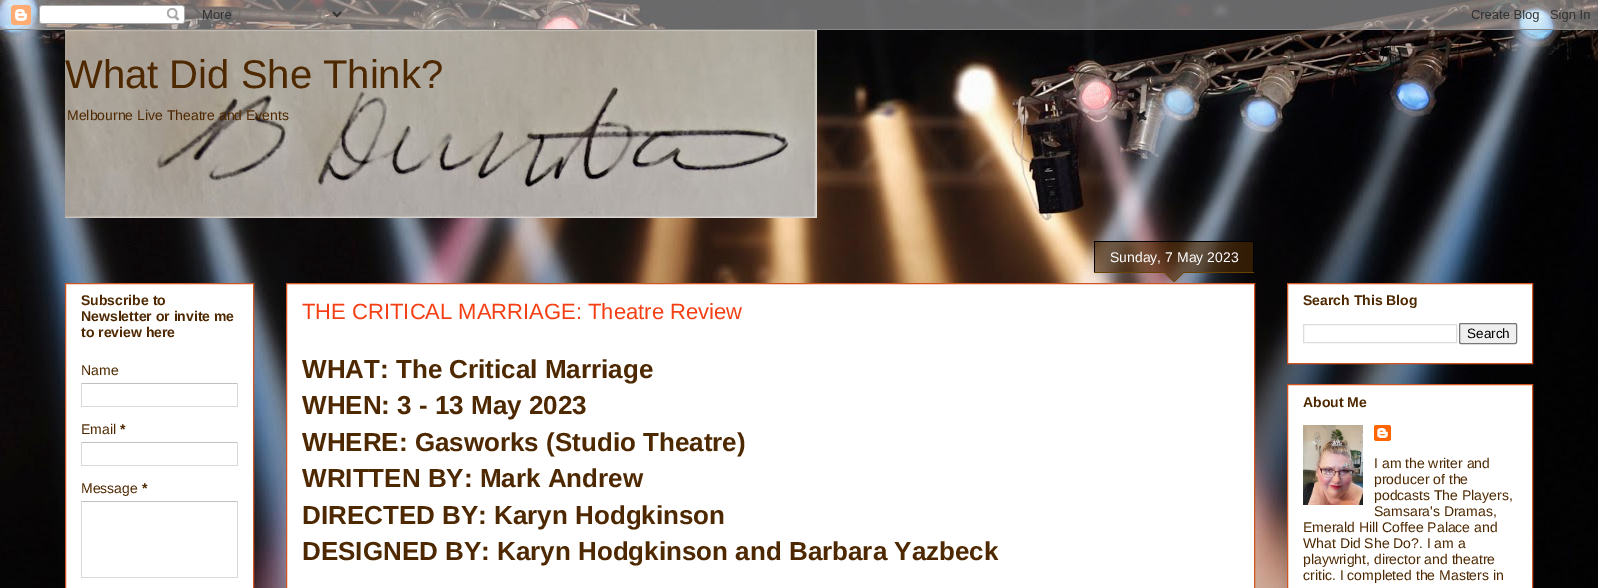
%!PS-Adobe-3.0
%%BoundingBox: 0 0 1598 588
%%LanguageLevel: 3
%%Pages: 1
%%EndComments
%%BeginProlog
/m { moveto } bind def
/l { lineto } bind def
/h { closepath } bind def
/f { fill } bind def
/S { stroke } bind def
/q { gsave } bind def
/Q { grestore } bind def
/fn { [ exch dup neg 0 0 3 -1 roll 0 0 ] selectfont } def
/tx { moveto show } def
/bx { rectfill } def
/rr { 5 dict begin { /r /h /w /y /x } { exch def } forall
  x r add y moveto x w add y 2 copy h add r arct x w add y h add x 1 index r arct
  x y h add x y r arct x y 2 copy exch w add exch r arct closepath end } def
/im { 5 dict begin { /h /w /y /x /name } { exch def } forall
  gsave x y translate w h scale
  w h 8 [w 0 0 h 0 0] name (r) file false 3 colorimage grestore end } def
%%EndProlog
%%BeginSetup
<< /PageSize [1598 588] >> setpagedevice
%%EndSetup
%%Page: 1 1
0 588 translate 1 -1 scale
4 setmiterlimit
1 setgray
0 0 1598 588 bx
(image0.raw) 0 0 1598 588 im
(image1.raw) 0 0 1598 30 im
(image2.raw) 65 30 752 188 im
/LiberationSans-Regular 40 fn
0.306 0.157 0 setrgbcolor
(What Did She Think?) 65 88 tx
/LiberationSans-Regular 14 fn
(Melbourne Live Theatre and Events) 67 120 tx
1 setgray
65.5 283.5 m 253.5 283.5 l 253.5 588.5 l 65.5 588.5 l h q f Q
0.824 0.329 0.125 setrgbcolor
S
/LiberationSans-Bold 14 fn
0.306 0.157 0 setrgbcolor
(Subscribe to) 81 305 tx
(Newsletter or invite me) 81 321 tx
(to review here) 81 337 tx
/LiberationSans-Regular 14 fn
(Name) 81 375 tx
0.753 setgray
81 383 157 1 bx
0.851 setgray
237 383 1 24 bx
81 406 157 1 bx
81 383 1 24 bx
0.306 0.157 0 setrgbcolor
(Email) 81 434 tx
/LiberationSans-Bold 14 fn
(*) 120 434 tx
0.753 setgray
81 442 157 1 bx
0.851 setgray
237 442 1 24 bx
81 465 157 1 bx
81 442 1 24 bx
/LiberationSans-Regular 14 fn
0.306 0.157 0 setrgbcolor
(Message) 81 493 tx
/LiberationSans-Bold 14 fn
(*) 142 493 tx
0.753 setgray
81 501 157 1 bx
0.851 setgray
237 501 1 77 bx
81 577 157 1 bx
81 501 1 77 bx
1 setgray
286.5 283.5 m 1254.5 283.5 l 1254.5 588.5 l 286.5 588.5 l h q f Q
0.824 0.329 0.125 setrgbcolor
S
(image3.raw) 1094 242 160 40 im
0 setgray
1094 241 160 1 bx
1253 242 1 30 bx
1094 242 1 30 bx
/LiberationSans-Regular 14 fn
1 setgray
(Sunday, 7 May 2023) 1110 262 tx
/LiberationSans-Regular 22 fn
0.957 0.247 0.078 setrgbcolor
(THE CRITICAL MARRIAGE: Theatre Review) 302 319 tx
/LiberationSans-Bold 26 fn
0.306 0.157 0 setrgbcolor
(WHAT: The Critical Marriage) 302 378 tx
(WHEN: 3 - 13 May 2023) 302 414 tx
(WHERE: Gasworks \(Studio Theatre\)) 302 451 tx
(WRITTEN BY: Mark Andrew) 302 487 tx
(DIRECTED BY: Karyn Hodgkinson) 302 524 tx
(DESIGNED BY: Karyn Hodgkinson and Barbara Yazbeck) 302 560 tx
1 setgray
1287.5 283.5 m 1532.5 283.5 l 1532.5 363.5 l 1287.5 363.5 l h q f Q
0.824 0.329 0.125 setrgbcolor
S
/LiberationSans-Bold 14 fn
0.306 0.157 0 setrgbcolor
(Search This Blog) 1303 305 tx
0.867 setgray
1303.5 324.5 153 18 rectstroke
0.937 setgray
1459.5 323.5 57 20 1.5 rr q f Q
0.463 setgray
S
/LiberationSans-Regular 13.5 fn
0 setgray
(Search) 1467 338 tx
1 setgray
1287.5 384.5 m 1532.5 384.5 l 1532.5 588.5 l 1287.5 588.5 l h q f Q
0.824 0.329 0.125 setrgbcolor
S
/LiberationSans-Bold 14 fn
0.306 0.157 0 setrgbcolor
(About Me) 1303 407 tx
(image4.raw) 1303 425 60 80 im
(image5.raw) 1374 425 17 16 im
/LiberationSans-Regular 14 fn
(I am the writer and) 1374 468 tx
(producer of the) 1374 484 tx
(podcasts The Players,) 1374 500 tx
(Samsara's Dramas,) 1374 516 tx
(Emerald Hill Coffee Palace and) 1303 532 tx
(What Did She Do?. I am a) 1303 548 tx
(playwright, director and theatre) 1303 564 tx
(critic. I completed the Masters in) 1303 580 tx
showpage
%%EOF
